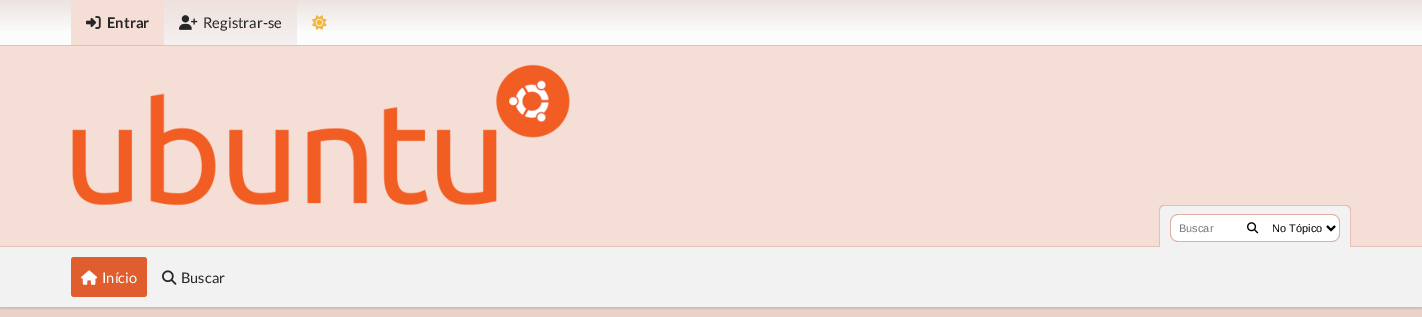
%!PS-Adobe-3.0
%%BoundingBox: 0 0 1422 317
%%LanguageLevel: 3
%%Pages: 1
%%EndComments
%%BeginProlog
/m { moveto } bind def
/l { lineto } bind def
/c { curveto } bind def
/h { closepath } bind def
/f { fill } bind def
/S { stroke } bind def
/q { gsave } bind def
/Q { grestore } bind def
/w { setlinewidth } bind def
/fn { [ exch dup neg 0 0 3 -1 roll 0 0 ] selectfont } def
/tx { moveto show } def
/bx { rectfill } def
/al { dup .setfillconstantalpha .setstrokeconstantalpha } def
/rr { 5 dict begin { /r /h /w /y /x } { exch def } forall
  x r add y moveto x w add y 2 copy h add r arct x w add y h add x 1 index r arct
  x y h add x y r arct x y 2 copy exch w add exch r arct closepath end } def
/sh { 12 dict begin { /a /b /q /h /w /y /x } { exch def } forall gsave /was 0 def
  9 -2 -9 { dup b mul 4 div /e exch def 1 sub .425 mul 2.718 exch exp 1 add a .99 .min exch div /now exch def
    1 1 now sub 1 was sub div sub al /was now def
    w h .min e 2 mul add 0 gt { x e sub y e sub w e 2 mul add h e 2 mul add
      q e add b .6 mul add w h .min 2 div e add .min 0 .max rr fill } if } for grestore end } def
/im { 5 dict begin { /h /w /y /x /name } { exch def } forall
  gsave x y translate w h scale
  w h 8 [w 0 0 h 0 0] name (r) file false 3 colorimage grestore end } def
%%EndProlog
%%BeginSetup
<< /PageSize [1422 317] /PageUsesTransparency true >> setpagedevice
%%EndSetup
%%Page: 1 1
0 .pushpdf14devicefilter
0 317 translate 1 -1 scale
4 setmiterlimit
0.91 0.824 0.788 setrgbcolor
0 0 1422 317 bx
q 0 0 m 1422 0 l 1422 45 l 0 45 l h clip newpath
<< /ShadingType 2 /ColorSpace /DeviceRGB /Coords [711 0 711 45] /Extend [true true] /Function << /FunctionType 3 /Domain [0 1] /Functions [<< /FunctionType 2 /Domain [0 1] /C0 [0.922 0.89 0.878] /C1 [0.988 0.988 0.988] /N 1 >> << /FunctionType 2 /Domain [0 1] /C0 [0.988 0.988 0.988] /C1 [0.988 0.988 0.988] /N 1 >>] /Bounds [0.7] /Encode [0 1 0 1] >> >> shfill Q
0.89 0.757 0.71 setrgbcolor
0 45 1422 1 bx
0.961 0.871 0.839 setrgbcolor
71 0 93 45 bx
(image0.raw) 86 16 15 13 im
/Lato-Bold 14.75 fn
0.149 setgray
(Entrar) 107 28 tx
q 164 0 m 297 0 l 297 45 l 164 45 l h clip newpath
<< /ShadingType 2 /ColorSpace /DeviceRGB /Coords [231 0 231 45] /Extend [true true] /Function << /FunctionType 2 /Domain [0 1] /C0 [0.933 0.882 0.867] /C1 [0.957 0.945 0.941] /N 1 >> >> shfill Q
(image1.raw) 179 15 19 15 im
/Lato-Regular 14.75 fn
(Registrar-se) 203 28 tx
(image2.raw) 312 15 15 15 im
0.961 0.871 0.839 setrgbcolor
0 46 1422 200 bx
0.89 0.757 0.71 setrgbcolor
0 246 1422 1 bx
(image3.raw) 72 64 498 142 im
0 setgray
0 249 1422 60 0 0.5 0.1 sh
0.949 setgray
1164 206 m 1346 206 l 1348 206 1350 208 1350 210 c 1350 247 l 1160 247 l 1160 210 l 1160 208 1162 206 1164 206 c h f
0.89 0.757 0.71 setrgbcolor
1164 205 m 1346 205 l 1349 205 1351 207 1351 210 c 1351 247 l 1159 247 l 1159 210 l 1159 207 1161 205 1164 205 c h 1164 206 m 1346 206 l 1348 206 1350 208 1350 210 c 1350 247 l 1160 247 l 1160 210 l 1160 208 1162 206 1164 206 c h eofill
1 setgray
1178 215 m 1237 215 l 1237 241 l 1178 241 l 1174 241 1171 238 1171 234 c 1171 222 l 1171 218 1174 215 1178 215 c h f
0.875 0.69 0.624 setrgbcolor
1178 214 m 1237 214 l 1237 242 l 1178 242 l 1174 242 1170 238 1170 234 c 1170 222 l 1170 218 1174 214 1178 214 c h 1178 215 m 1237 215 l 1237 241 l 1178 241 l 1174 241 1171 238 1171 234 c 1171 222 l 1171 218 1174 215 1178 215 c h eofill
/LiberationSans-Regular 11 fn
0.459 setgray
(Buscar) 1179 232 tx
1 setgray
1237 215 31 26 bx
0.875 0.69 0.624 setrgbcolor
1237 214 31 1 bx
1237 241 31 1 bx
(image4.raw) 1247 222 12 12 im
1 setgray
1268 215 m 1332 215 l 1336 215 1339 218 1339 222 c 1339 234 l 1339 238 1336 241 1332 241 c 1268 241 l h f
0.875 0.69 0.624 setrgbcolor
1268 214 m 1332 214 l 1336 214 1340 218 1340 222 c 1340 234 l 1340 238 1336 242 1332 242 c 1268 242 l h 1268 215 m 1332 215 l 1336 215 1339 218 1339 222 c 1339 234 l 1339 238 1336 241 1332 241 c 1268 241 l h eofill
0 setgray
2 w
1327 226 m 1331 230 l 1335 226 l S
(No Tópico) 1272 232 tx
0.949 setgray
0 247 1422 60 bx
0.878 0.369 0.18 setrgbcolor
71 257 76 40 3 rr f
(image5.raw) 81 270 17 15 im
/Lato-Regular 14.5 fn
1 setgray
(Início) 102 283 tx
(image6.raw) 162 270 15 15 im
0.149 setgray
(Buscar) 181 283 tx
.poppdf14devicefilter showpage
%%EOF
